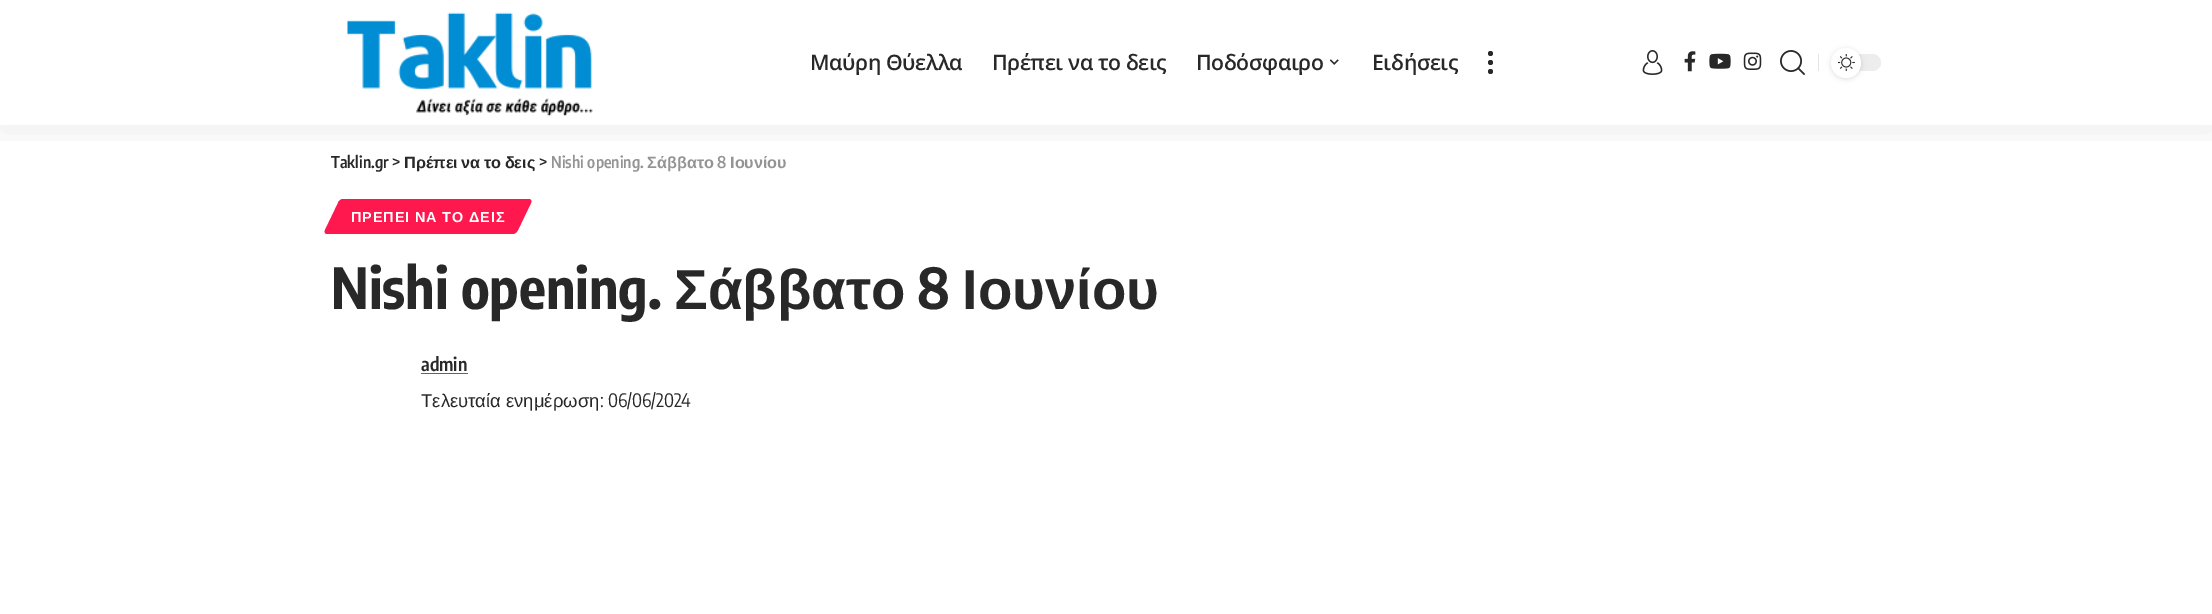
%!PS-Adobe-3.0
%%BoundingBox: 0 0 2212 614
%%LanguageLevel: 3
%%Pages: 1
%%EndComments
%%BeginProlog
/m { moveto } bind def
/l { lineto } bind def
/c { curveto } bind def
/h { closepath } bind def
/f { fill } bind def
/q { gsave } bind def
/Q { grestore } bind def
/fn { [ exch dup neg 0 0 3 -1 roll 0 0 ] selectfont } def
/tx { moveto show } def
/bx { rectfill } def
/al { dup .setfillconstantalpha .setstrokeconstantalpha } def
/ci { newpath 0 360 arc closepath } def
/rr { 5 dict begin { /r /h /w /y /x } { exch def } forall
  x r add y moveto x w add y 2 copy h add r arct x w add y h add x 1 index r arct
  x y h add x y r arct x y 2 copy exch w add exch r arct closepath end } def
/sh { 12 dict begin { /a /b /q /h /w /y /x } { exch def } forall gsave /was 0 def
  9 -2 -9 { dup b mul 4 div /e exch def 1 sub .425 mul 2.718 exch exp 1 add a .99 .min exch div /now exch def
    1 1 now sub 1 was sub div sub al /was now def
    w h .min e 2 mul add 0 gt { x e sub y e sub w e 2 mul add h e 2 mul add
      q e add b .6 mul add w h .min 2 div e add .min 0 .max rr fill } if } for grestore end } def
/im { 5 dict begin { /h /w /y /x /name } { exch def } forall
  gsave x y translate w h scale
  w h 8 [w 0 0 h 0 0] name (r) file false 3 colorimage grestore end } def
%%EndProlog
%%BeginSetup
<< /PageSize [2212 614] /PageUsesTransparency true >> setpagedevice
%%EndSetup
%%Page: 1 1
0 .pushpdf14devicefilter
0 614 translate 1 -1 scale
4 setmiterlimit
1 setgray
0 0 2212 614 bx
q
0 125 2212 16 rectclip
0 setgray
0 5 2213 125 0 19 0.07 sh
Q
(image0.raw) 347 12 246 105 im
/OpenSans-SemiBold 21.25 fn
0.157 setgray
810 70 m -0.4 0 (Μαύρη Θύελλα) ashow
992 70 m -0.4 0 (Πρέπει να το δεις) ashow
1196 70 m -0.4 0 (Ποδόσφαιρο) ashow
(image1.raw) 1329 59 10 6 im
1372 70 m -0.4 0 (Ειδήσεις) ashow
1490.5 53.5 2.5 ci f
1490.5 62.5 2.5 ci f
1490.5 71.5 2.5 ci f
(image2.raw) 1642 50 21 25 im
(image3.raw) 1684 51 12 21 im
(image4.raw) 1709 53 22 16 im
(image5.raw) 1743 52 19 18 im
(image6.raw) 1780 50 25 25 im
0.894 setgray
1818 54 1 17 bx
0.929 setgray
1831 54 50 17 8.5 rr f
0 setgray
1831 49 30 30 15 2.5 0.12 sh
1 setgray
1846 63 15 ci f
(image7.raw) 1838 54 17 17 im
/EncodeSansCondensed-SemiBold 16.25 fn
0.157 setgray
(Taklin.gr >) 331 168 tx
/LiberationSans-Bold 16.25 fn
404 168 m -1 0 32 (Πρέπει να το δεις) widthshow
/EncodeSansCondensed-SemiBold 16.25 fn
(>) 539 168 tx
0.58 setgray
(Nishi opening.) 551 168 tx
/LiberationSans-Bold 16.25 fn
(Σάββατο) 647 168 tx
/EncodeSansCondensed-SemiBold 16.25 fn
(8) 717 168 tx
/LiberationSans-Bold 16.25 fn
(Ιουνίου) 730 168 tx
1 0.094 0.306 setrgbcolor
343 199 m 529 199 l 531 199 532 201 531 203 c 518 230 l 517 232 515 234 513 234 c 327 234 l 325 234 324 232 325 230 c 338 203 l 338 201 341 199 343 199 c h f
/LiberationSans-Bold 14.4 fn
1 setgray
351 222 m 0.9 0 (ΠΡΕΠΕΙ ΝΑ ΤΟ ΔΕΙΣ) ashow
/EncodeSansCondensed-Bold 56.25 fn
0.157 setgray
(Nishi opening.) 331 309 tx
/LiberationSans-Bold 56.25 fn
(Σάββατο) 674 309 tx
/EncodeSansCondensed-Bold 56.25 fn
(8) 917 309 tx
/LiberationSans-Bold 56.25 fn
(Ιουνίου) 962 309 tx
/EncodeSansCondensed-SemiBold 18.5 fn
(admin) 421 371 tx
1 0.094 0.306 setrgbcolor
421 373 47 1 bx
/LiberationSans-Regular 18.5 fn
0.157 setgray
(Τελευταία) 421 407 tx
(ενημέρωση) 506 407 tx
/EncodeSansCondensed-Regular 18.5 fn
(: 06/06/2024) 600 407 tx
.poppdf14devicefilter showpage
%%EOF
